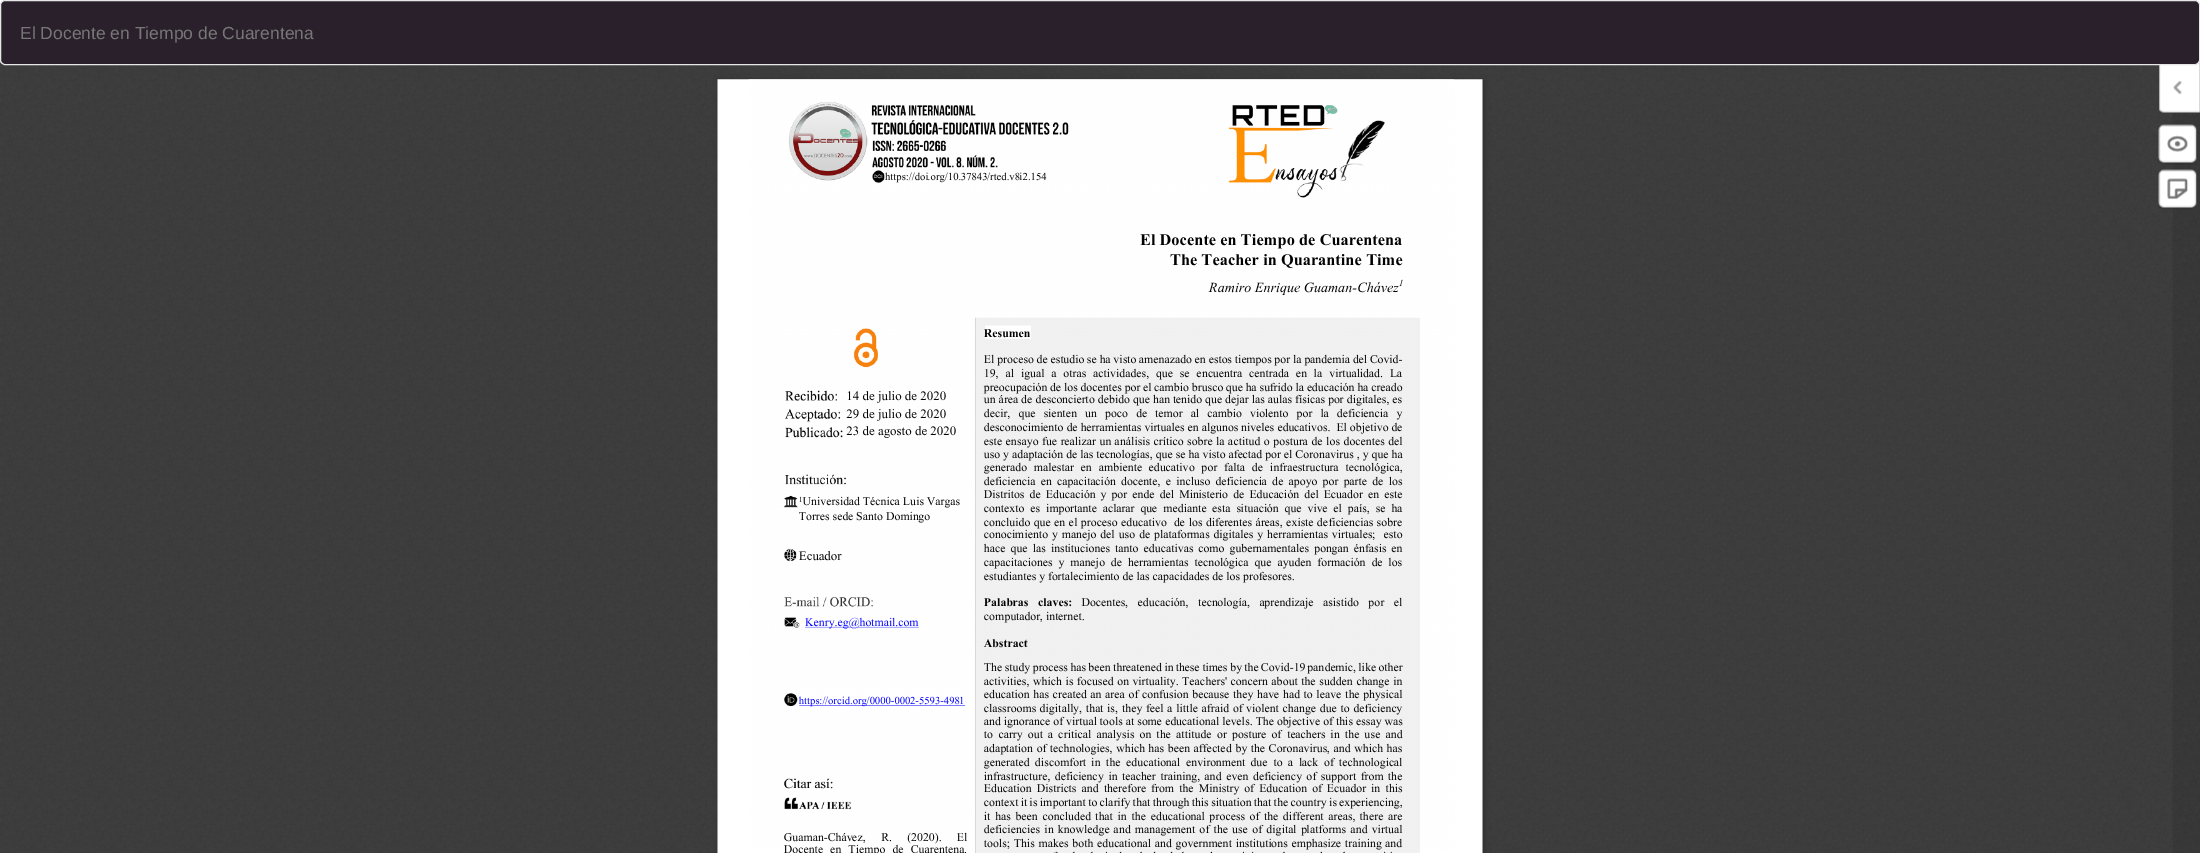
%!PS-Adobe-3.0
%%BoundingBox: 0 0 2200 853
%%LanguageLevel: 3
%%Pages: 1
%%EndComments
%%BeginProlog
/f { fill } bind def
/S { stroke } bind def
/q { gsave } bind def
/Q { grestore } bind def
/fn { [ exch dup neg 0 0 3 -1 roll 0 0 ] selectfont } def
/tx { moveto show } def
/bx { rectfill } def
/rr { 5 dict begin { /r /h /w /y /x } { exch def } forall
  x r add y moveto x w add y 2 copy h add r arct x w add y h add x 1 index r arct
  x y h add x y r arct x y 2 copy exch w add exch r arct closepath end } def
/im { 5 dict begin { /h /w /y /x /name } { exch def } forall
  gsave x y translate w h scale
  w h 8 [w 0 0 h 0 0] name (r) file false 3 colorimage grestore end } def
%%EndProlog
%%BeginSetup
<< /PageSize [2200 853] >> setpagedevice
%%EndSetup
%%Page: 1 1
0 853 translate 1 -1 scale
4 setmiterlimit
1 setgray
0 0 2200 853 bx
(image0.raw) 0 62 2200 791 im
0.165 0.125 0.169 setrgbcolor
0.5 0.5 2199 64 4.5 rr q f Q
0.906 setgray
S
/LiberationSans-Regular 17.5 fn
0.467 setgray
(El Docente en Tiempo de Cuarentena) 20 39 tx
showpage
%%EOF
